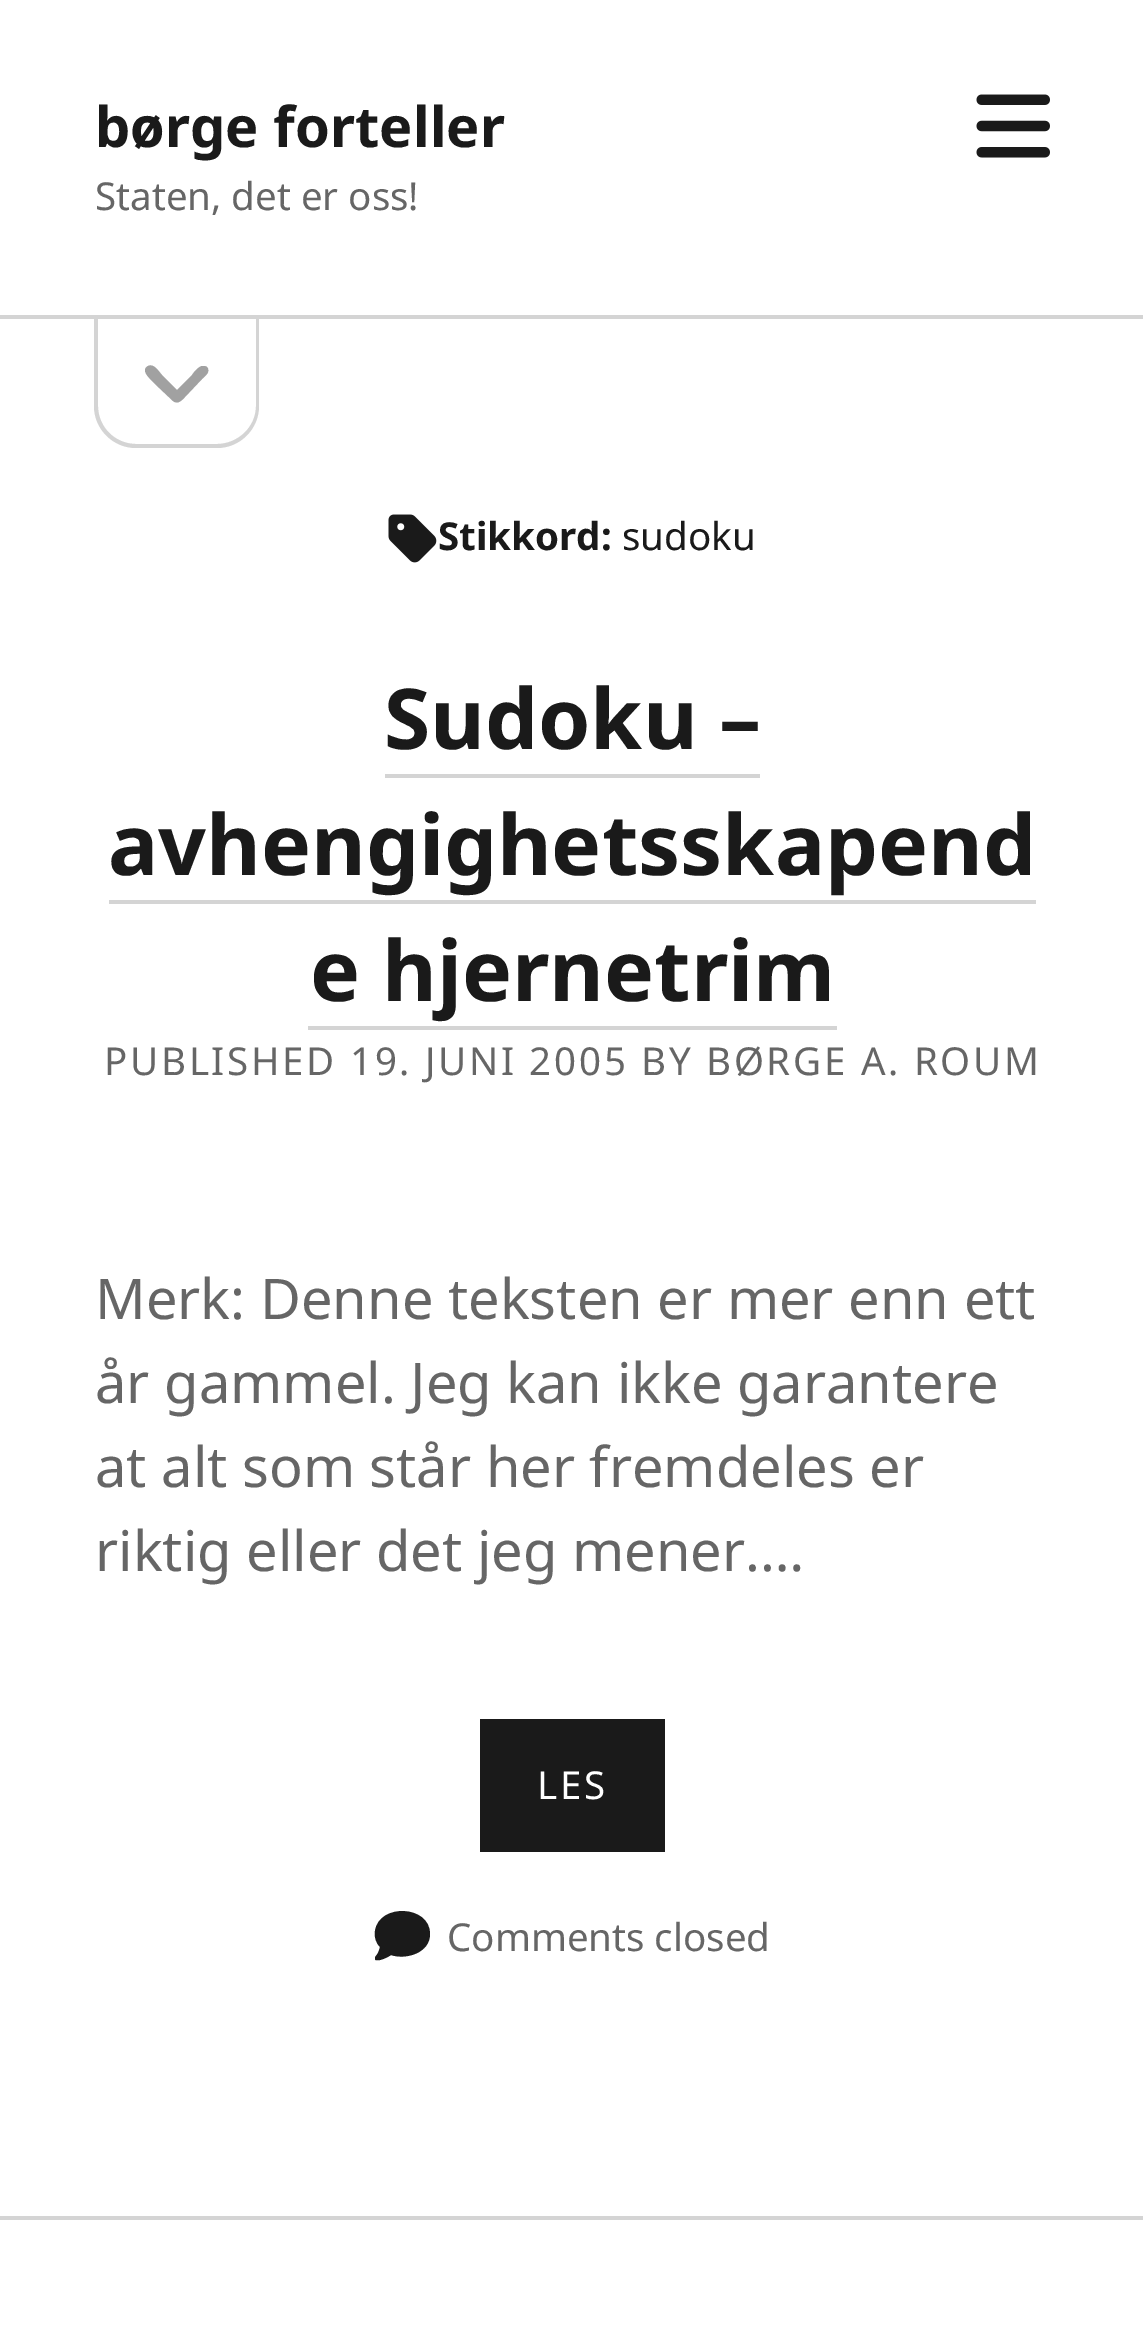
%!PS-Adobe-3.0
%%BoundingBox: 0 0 1143 2339
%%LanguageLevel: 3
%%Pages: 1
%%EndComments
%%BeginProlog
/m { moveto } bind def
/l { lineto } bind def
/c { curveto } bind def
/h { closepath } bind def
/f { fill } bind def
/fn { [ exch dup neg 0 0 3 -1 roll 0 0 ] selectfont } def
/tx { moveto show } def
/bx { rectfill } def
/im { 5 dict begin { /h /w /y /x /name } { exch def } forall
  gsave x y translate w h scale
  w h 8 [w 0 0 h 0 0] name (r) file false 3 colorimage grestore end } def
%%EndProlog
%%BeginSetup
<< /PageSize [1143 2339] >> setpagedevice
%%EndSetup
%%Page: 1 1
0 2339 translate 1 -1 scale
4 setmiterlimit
1 setgray
0 0 1143 2339 bx
0.831 setgray
0 315 1143 4 bx
/NotoSans-Bold 56 fn
0.102 setgray
(børge forteller) 95 147 tx
/NotoSans-Regular 38.5 fn
0.4 setgray
(Staten, det er oss!) 95 210 tx
(image0.raw) 976 94 74 64 im
0.831 setgray
94 318 m 259 318 l 259 406 l 259 429 240 448 217 448 c 136 448 l 113 448 94 429 94 406 c h 98 318 m 256 318 l 256 406 l 256 427 238 444 217 444 c 136 444 l 115 444 98 427 98 406 c h eofill
0.631 setgray
173 401 m 178 405 182 400 185 397 c 202 379 l 205 376 211 372 207 367 c 206 366 204 366 202 366 c 198 367 194 372 192 375 c 177 390 l 162 375 l 159 372 154 363 148 366 c 139 371 153 381 155 384 c h f
(image1.raw) 388 514 49 49 im
/NotoSans-Bold 38.5 fn
0.102 setgray
(Stikkord:) 438 550 tx
/NotoSans-Regular 38.5 fn
(sudoku) 622 550 tx
/NotoSans-Bold 84 fn
(Sudoku –) 384 749 tx
0.831 setgray
385 774 375 4 bx
0.102 setgray
(avhengighetsskapend) 108 875 tx
0.831 setgray
109 900 927 4 bx
0.102 setgray
(e hjernetrim) 310 1001 tx
0.831 setgray
308 1026 529 4 bx
/NotoSans-Regular 38.5 fn
0.4 setgray
104 1075 m 2.7 0 (PUBLISHED 19. JUNI 2005 BY BØRGE A. ROUM) ashow
/NotoSans-Regular 56 fn
(Merk: Denne teksten er mer enn ett) 95 1319 tx
(år gammel. Jeg kan ikke garantere) 95 1403 tx
(at alt som står her fremdeles er) 95 1487 tx
(riktig eller det jeg mener.…) 95 1571 tx
0.102 setgray
480 1719 185 133 bx
/NotoSans-Regular 38.5 fn
1 setgray
537 1799 m 2.7 0 (LES) ashow
0.102 setgray
430 1934 m 430 1953 406 1960 391 1955 c 388 1957 384 1959 380 1960 c 378 1960 375 1961 375 1959 c 375 1957 l 378 1954 379 1951 380 1947 c 376 1943 374 1937 375 1931 c 379 1903 430 1905 430 1934 c h f
0.4 setgray
(Comments closed) 447 1951 tx
0.831 setgray
0 2216 1143 4 bx
showpage
%%EOF
